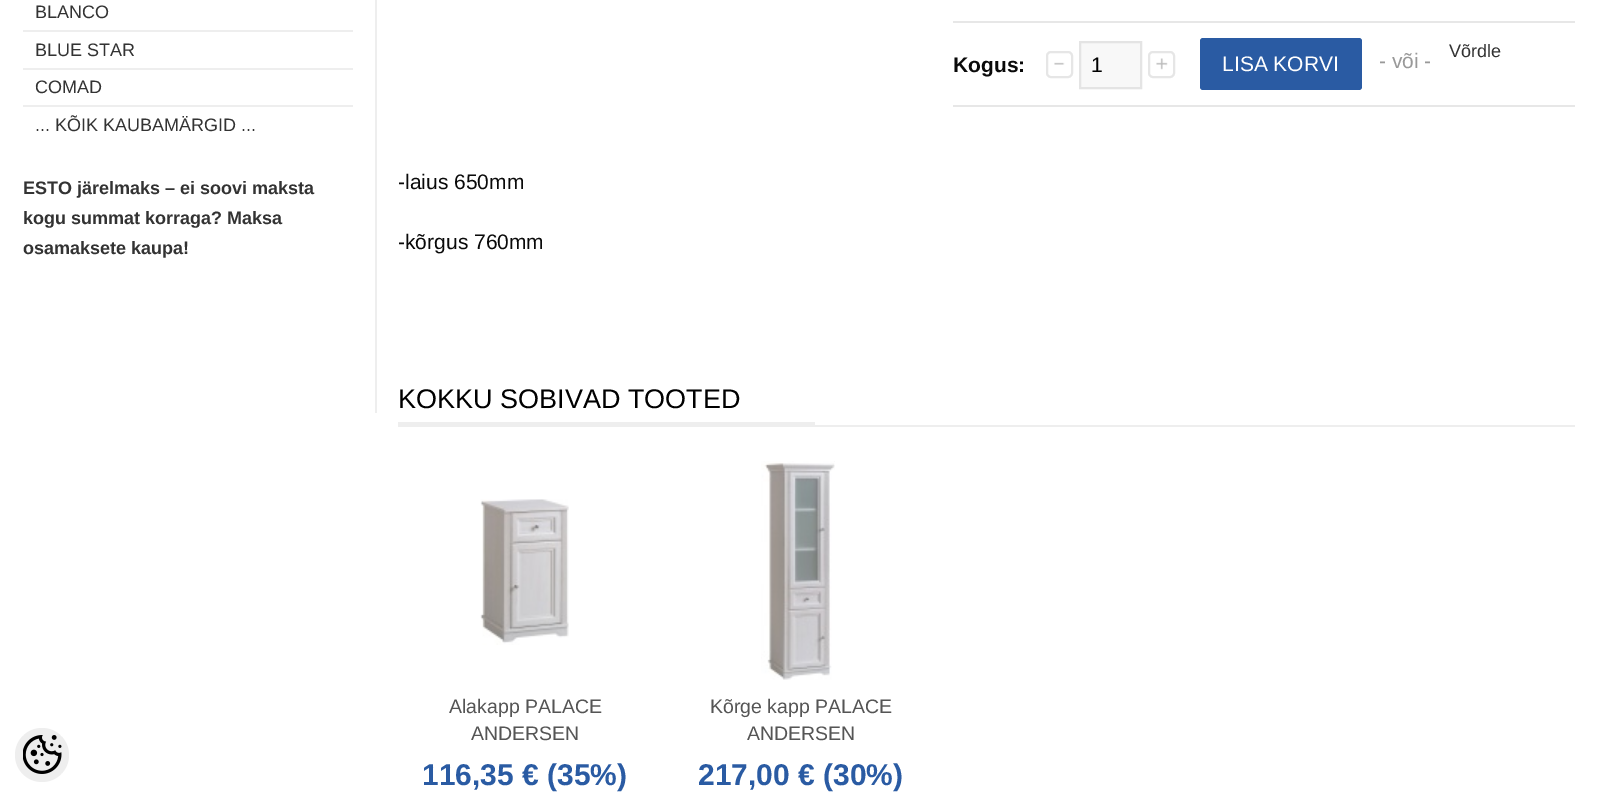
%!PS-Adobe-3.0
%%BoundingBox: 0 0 1597 796
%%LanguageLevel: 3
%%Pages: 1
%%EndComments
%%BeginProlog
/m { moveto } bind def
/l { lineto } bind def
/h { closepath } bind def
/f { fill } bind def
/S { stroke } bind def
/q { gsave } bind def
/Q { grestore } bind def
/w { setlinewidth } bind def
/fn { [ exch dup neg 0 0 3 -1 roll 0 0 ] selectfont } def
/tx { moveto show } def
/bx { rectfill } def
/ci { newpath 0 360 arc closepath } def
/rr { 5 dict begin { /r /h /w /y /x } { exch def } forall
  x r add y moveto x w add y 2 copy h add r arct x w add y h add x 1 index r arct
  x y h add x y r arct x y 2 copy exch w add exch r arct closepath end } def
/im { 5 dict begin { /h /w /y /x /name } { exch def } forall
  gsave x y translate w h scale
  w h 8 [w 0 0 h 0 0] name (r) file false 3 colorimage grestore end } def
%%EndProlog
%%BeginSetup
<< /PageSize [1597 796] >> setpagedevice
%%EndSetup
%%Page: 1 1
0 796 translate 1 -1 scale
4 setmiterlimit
1 setgray
0 0 1597 796 bx
0.933 setgray
375 0 2 413 bx
/LiberationSans-Regular 18 fn
0.2 setgray
(BLANCO) 35 18 tx
0.933 setgray
23 30 330 2 bx
0.2 setgray
(BLUE STAR) 35 56 tx
0.933 setgray
23 68 330 2 bx
0.2 setgray
(COMAD) 35 93 tx
0.933 setgray
23 105 330 2 bx
0.2 setgray
(... KÕIK KAUBAMÄRGID ...) 35 131 tx
/LiberationSans-Bold 18 fn
(ESTO järelmaks – ei soovi maksta) 23 194 tx
(kogu summat korraga? Maksa) 23 224 tx
(osamaksete kaupa!) 23 254 tx
0.906 setgray
953 21 622 2 bx
953 105 622 2 bx
/LiberationSans-Bold 21 fn
0.039 setgray
(Kogus:) 953 72 tx
(image0.raw) 1054 62 11 3 im
0.902 setgray
2 w
1047 52 25 25 4 rr S
0.973 setgray
1080 42 m 1141 42 l 1141 88 l 1080 88 l h q f Q
0.894 setgray
S
/LiberationSans-Regular 21 fn
0 setgray
(1) 1091 72 tx
(image1.raw) 1156 58 12 12 im
0.902 setgray
1149 52 25 25 4 rr S
/LiberationSans-Regular 18 fn
0.2 setgray
(Võrdle) 1449 57 tx
0.165 0.357 0.639 setrgbcolor
1200 38 162 52 3 rr f
/LiberationSans-Regular 21 fn
1 setgray
(LISA KORVI) 1222 71 tx
0.6 setgray
(- või -) 1379 68 tx
0.039 setgray
(-laius 650mm) 398 189 tx
(-kõrgus 760mm) 398 249 tx
0.933 setgray
398 425 1177 2 bx
398 422 417 3 bx
/LiberationSans-Regular 27 fn
0 setgray
(KOKKU SOBIVAD TOOTED) 398 408 tx
(image2.raw) 480 499 89 146 im
/LiberationSans-Regular 19.5 fn
0.333 setgray
(Alakapp PALACE) 449 713 tx
(ANDERSEN) 471 740 tx
/LiberationSans-Bold 30 fn
0.165 0.357 0.639 setrgbcolor
(116,35 € \(35%\)) 422 785 tx
(image3.raw) 761 461 74 219 im
/LiberationSans-Regular 19.5 fn
0.333 setgray
(Kõrge kapp PALACE) 710 713 tx
(ANDERSEN) 747 740 tx
/LiberationSans-Bold 30 fn
0.165 0.357 0.639 setrgbcolor
(217,00 € \(30%\)) 698 785 tx
0.933 setgray
42 755 27 ci f
(image4.raw) 23 735 39 39 im
showpage
%%EOF
